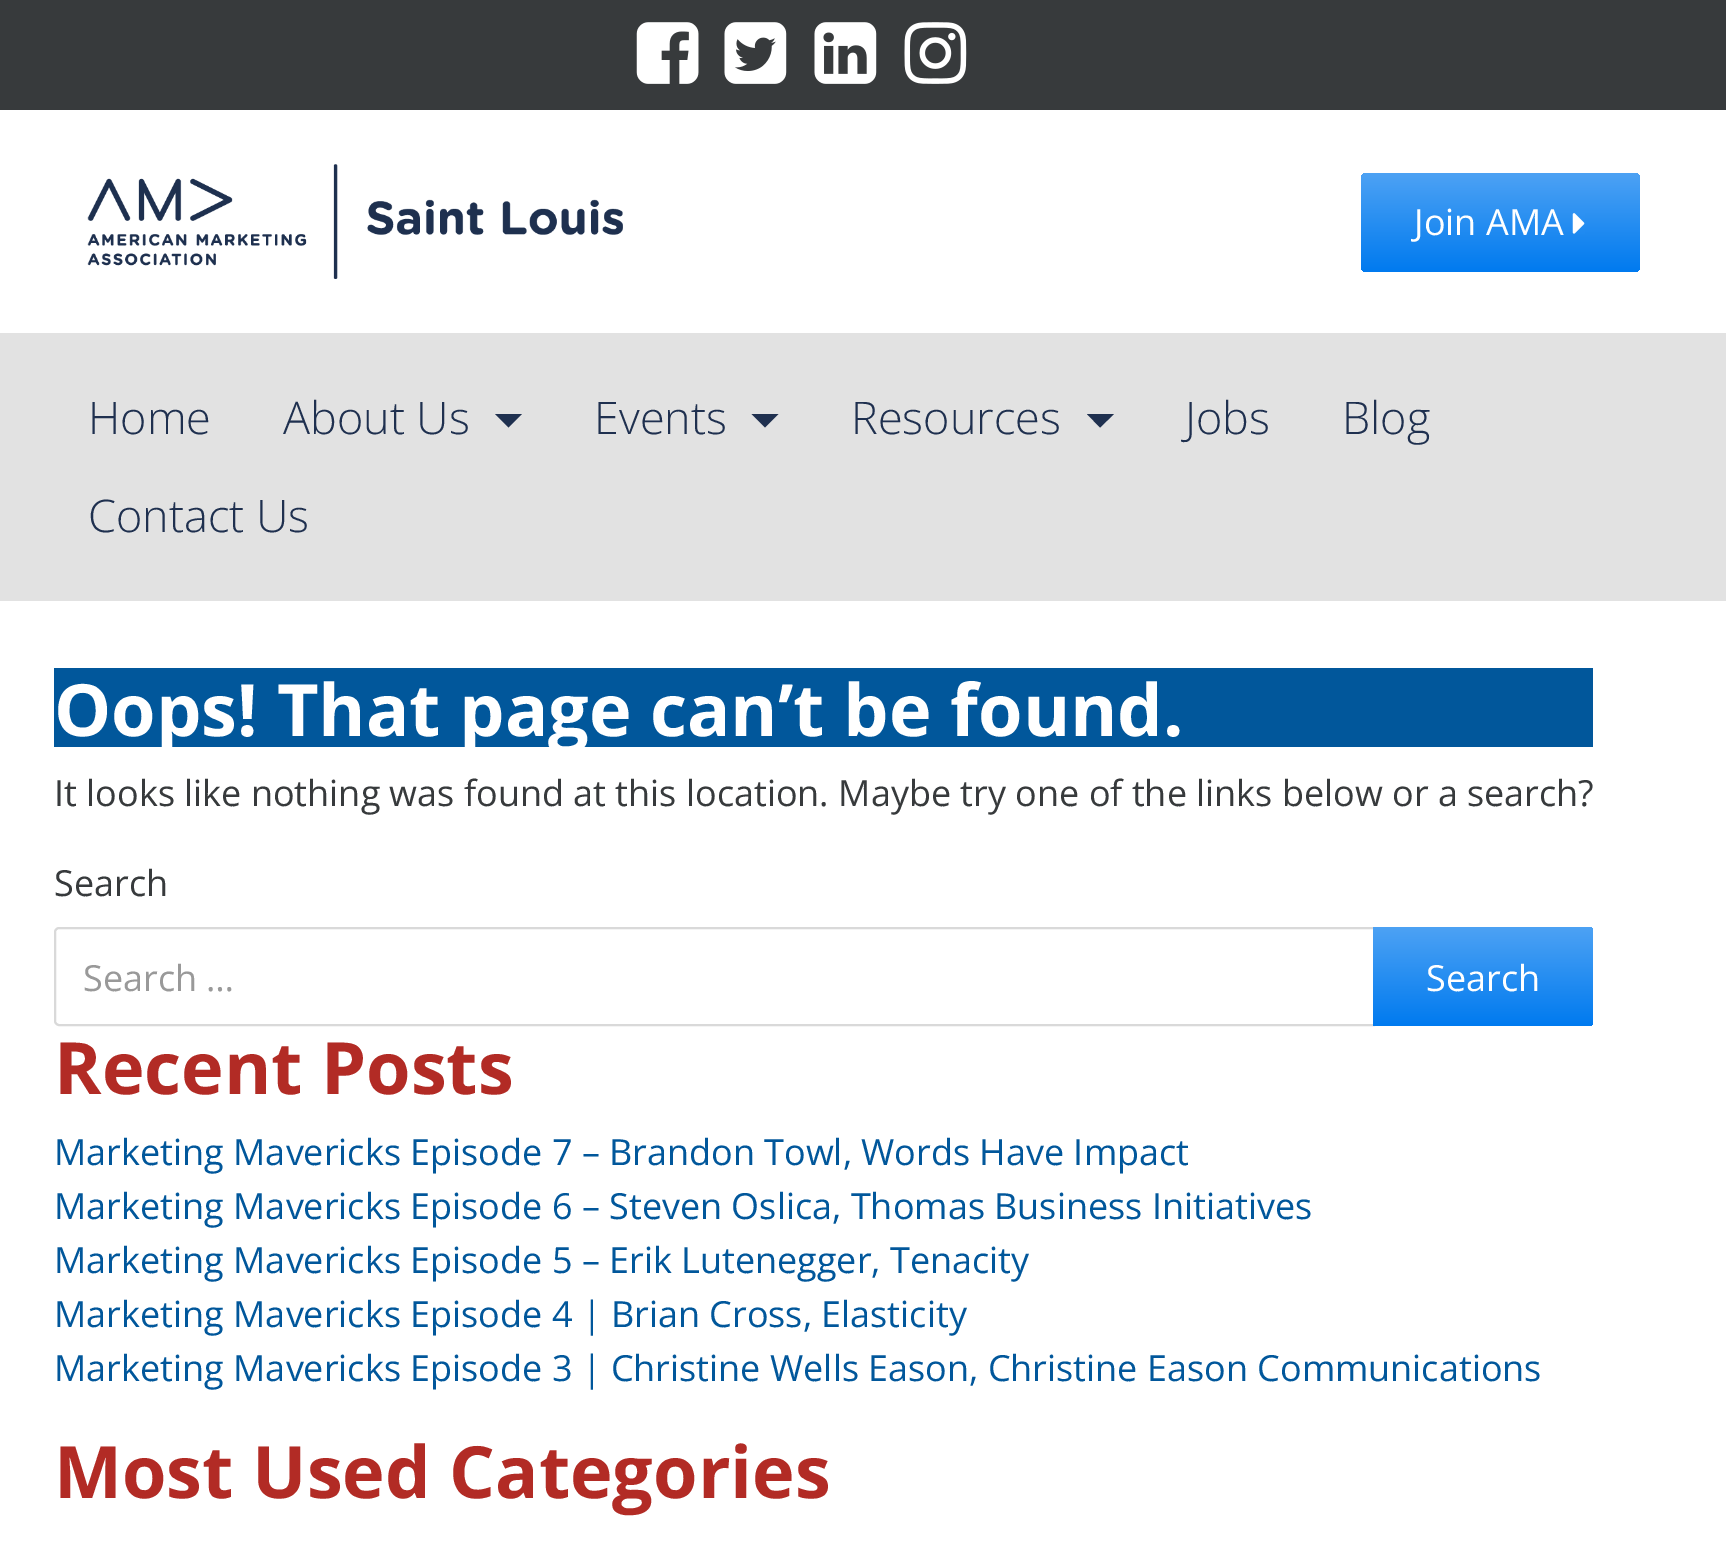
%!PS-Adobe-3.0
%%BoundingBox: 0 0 1726 1558
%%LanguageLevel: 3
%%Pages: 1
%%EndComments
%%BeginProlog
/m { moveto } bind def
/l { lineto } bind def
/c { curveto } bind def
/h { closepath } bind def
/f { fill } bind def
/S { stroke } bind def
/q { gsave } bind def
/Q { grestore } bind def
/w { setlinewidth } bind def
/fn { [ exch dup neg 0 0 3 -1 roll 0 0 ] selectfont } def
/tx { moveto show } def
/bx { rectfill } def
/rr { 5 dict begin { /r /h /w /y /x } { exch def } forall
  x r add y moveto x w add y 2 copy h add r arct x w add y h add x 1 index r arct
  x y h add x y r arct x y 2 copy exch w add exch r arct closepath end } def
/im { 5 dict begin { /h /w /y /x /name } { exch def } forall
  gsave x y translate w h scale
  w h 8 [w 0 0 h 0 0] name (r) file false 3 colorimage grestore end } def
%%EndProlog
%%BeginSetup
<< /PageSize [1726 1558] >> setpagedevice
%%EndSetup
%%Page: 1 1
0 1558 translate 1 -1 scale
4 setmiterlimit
1 setgray
0 0 1726 1558 bx
0.216 0.227 0.235 setrgbcolor
0 0 1726 110 bx
(image0.raw) 636 22 63 62 im
(image1.raw) 724 22 63 62 im
(image2.raw) 814 22 63 62 im
(image3.raw) 904 22 63 62 im
(image4.raw) 87 164 536 115 im
q 1361 173 279 99 5 rr clip newpath
<< /ShadingType 2 /ColorSpace /DeviceRGB /Coords [1501 173 1501 272] /Extend [true true] /Function << /FunctionType 2 /Domain [0 1] /C0 [0.302 0.635 0.957] /C1 [0 0.478 0.937] /N 1 >> >> shfill Q
/OpenSans-Regular 36 fn
1 setgray
(Join AMA) 1414 235 tx
(image5.raw) 1572 213 13 21 im
0.886 setgray
0 333 1726 268 bx
/OpenSans-Light 45 fn
0.122 0.188 0.31 setrgbcolor
(Home) 88 434 tx
(About Us) 283 434 tx
495 414 m 522 414 l 508.5 427.5 l h f
(Events) 594 434 tx
751.5 414 m 778.5 414 l 765 427.5 l h f
(Resources) 851 434 tx
1087 414 m 1114 414 l 1100 427.5 l h f
(Jobs) 1185 434 tx
(Blog) 1342 434 tx
(Contact Us) 88 532 tx
0.004 0.341 0.608 setrgbcolor
54 668 1539 79 bx
/OpenSans-Bold 72 fn
1 setgray
(Oops! That page can’t be found.) 54 736 tx
/OpenSans-Regular 36 fn
0.216 0.227 0.235 setrgbcolor
(It looks like nothing was found at this location. Maybe try one of the links below or a search?) 54 806 tx
(Search) 54 896 tx
0.851 setgray
2 w
59 928 m 1374 928 l 1374 1025 l 59 1025 l 57 1025 55 1023 55 1021 c 55 932 l 55 930 57 928 59 928 c h S
0.6 setgray
(Search …) 83 991 tx
q 1373 927 m 1588 927 l 1591 927 1593 929 1593 932 c 1593 1021 l 1593 1024 1591 1026 1588 1026 c 1373 1026 l h clip newpath
<< /ShadingType 2 /ColorSpace /DeviceRGB /Coords [1483 927 1483 1026] /Extend [true true] /Function << /FunctionType 2 /Domain [0 1] /C0 [0.302 0.635 0.957] /C1 [0 0.478 0.937] /N 1 >> >> shfill Q
1 setgray
(Search) 1426 991 tx
/OpenSans-Bold 72 fn
0.698 0.169 0.145 setrgbcolor
(Recent Posts) 54 1094 tx
/OpenSans-Regular 36 fn
0.004 0.341 0.608 setrgbcolor
(Marketing Mavericks Episode 7 – Brandon Towl, Words Have Impact) 54 1165 tx
(Marketing Mavericks Episode 6 – Steven Oslica, Thomas Business Initiatives) 54 1219 tx
(Marketing Mavericks Episode 5 – Erik Lutenegger, Tenacity) 54 1273 tx
(Marketing Mavericks Episode 4 | Brian Cross, Elasticity) 54 1327 tx
(Marketing Mavericks Episode 3 | Christine Wells Eason, Christine Eason Communications) 54 1381 tx
/OpenSans-Bold 72 fn
0.698 0.169 0.145 setrgbcolor
(Most Used Categories) 54 1498 tx
showpage
%%EOF
